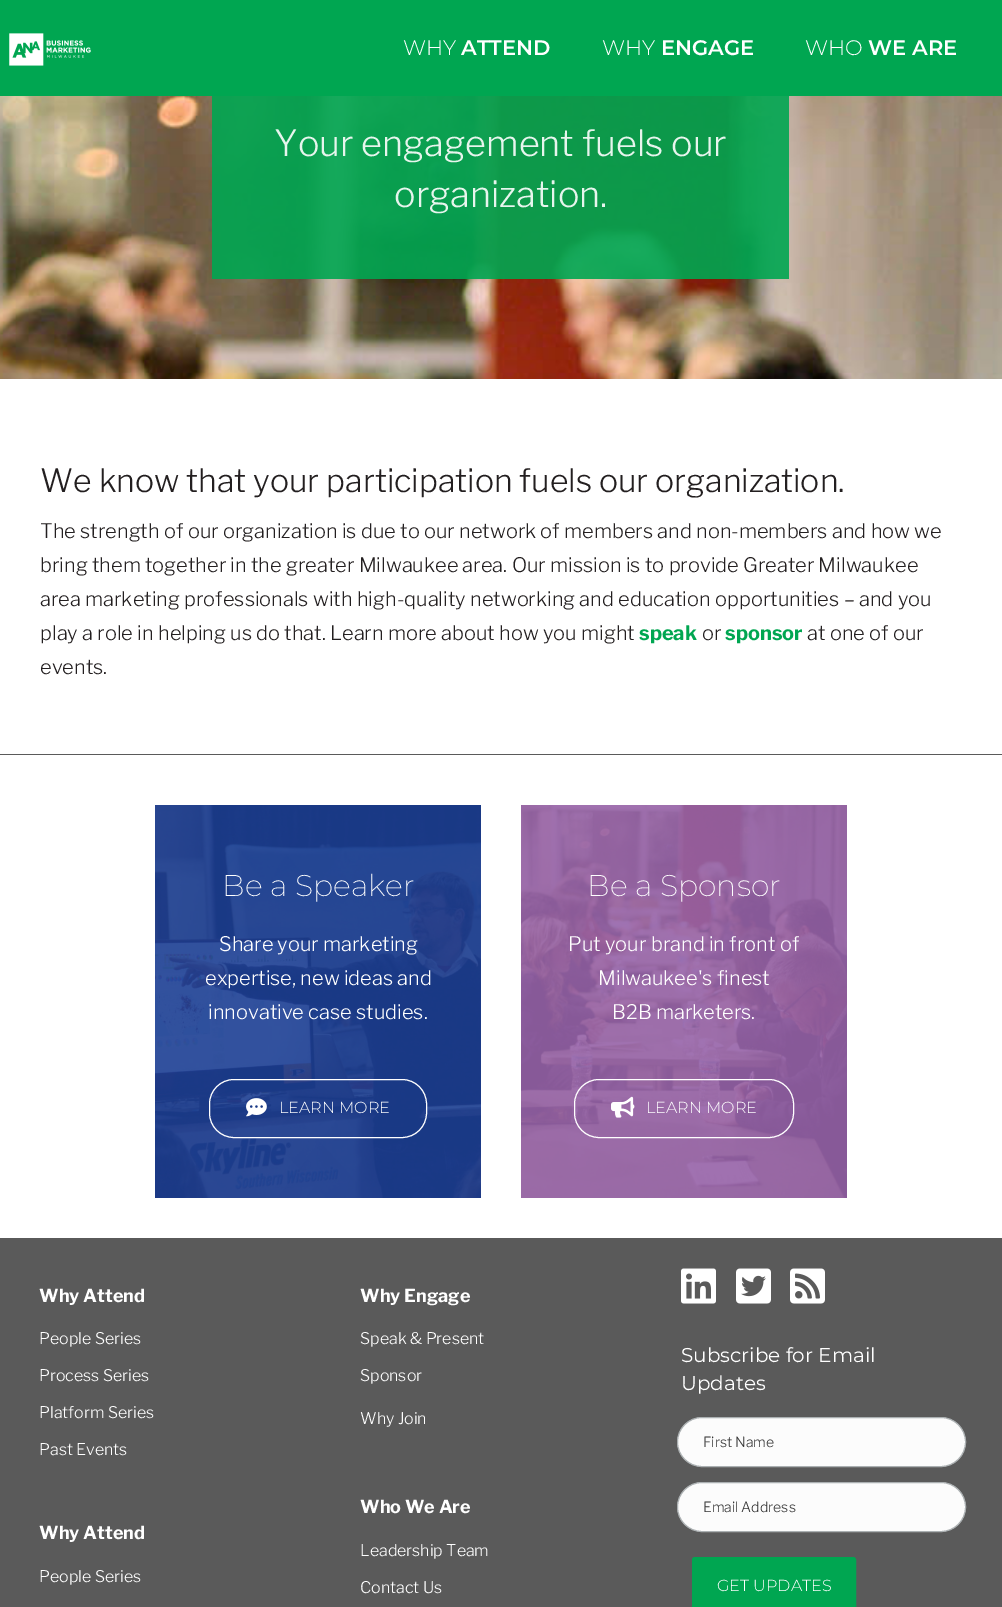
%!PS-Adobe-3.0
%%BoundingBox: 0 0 1002 1607
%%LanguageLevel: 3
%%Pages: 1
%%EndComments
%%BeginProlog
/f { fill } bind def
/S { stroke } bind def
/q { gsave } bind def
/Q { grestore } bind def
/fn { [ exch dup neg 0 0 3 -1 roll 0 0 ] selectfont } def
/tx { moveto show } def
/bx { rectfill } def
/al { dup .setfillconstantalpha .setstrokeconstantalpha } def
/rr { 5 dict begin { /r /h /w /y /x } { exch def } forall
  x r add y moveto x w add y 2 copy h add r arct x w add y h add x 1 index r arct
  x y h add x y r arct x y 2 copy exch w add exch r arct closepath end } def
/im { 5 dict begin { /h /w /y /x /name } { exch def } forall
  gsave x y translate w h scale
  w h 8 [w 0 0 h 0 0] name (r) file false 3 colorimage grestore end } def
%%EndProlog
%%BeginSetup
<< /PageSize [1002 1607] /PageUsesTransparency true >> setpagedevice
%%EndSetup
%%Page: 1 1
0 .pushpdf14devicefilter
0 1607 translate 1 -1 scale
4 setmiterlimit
1 setgray
0 0 1002 1607 bx
0 0.651 0.318 setrgbcolor
0 0 1002 96 bx
(image0.raw) 9 33 82 33 im
/Montserrat-Light 21 fn
1 setgray
(WHY) 403 55 tx
/Montserrat-SemiBold 21 fn
(ATTEND) 461 55 tx
/Montserrat-Light 21 fn
(WHY) 602 55 tx
/Montserrat-SemiBold 21 fn
(ENGAGE) 661 55 tx
/Montserrat-Light 21 fn
(WHO) 805 55 tx
/Montserrat-SemiBold 21 fn
(WE ARE) 868 55 tx
(image1.raw) 0 96 1002 283 im
0.9 al
0 0.651 0.318 setrgbcolor
212 96 577 183 bx
/LibreFranklin-Light 36 fn
1 al
0.906 0.961 0.929 setrgbcolor
(Your engagement fuels our) 274 156 tx
(organization.) 394 207 tx
0.353 setgray
0 754 1002 1 bx
/LibreFranklin-Light 32 fn
0.137 0.122 0.125 setrgbcolor
(We know that your participation fuels our organization.) 40 492 tx
/LibreFranklin-Light 20 fn
(The strength of our organization is due to our network of members and non-members and how we) 40 538 tx
(bring them together in the greater Milwaukee area. Our mission is to provide Greater Milwaukee) 40 572 tx
(area marketing professionals with high-quality networking and education opportunities – and you) 40 606 tx
(play a role in helping us do that. Learn more about how you might) 40 640 tx
/LibreFranklin-Bold 20 fn
0 0.651 0.318 setrgbcolor
(speak) 639 640 tx
/LibreFranklin-Light 20 fn
0.137 0.122 0.125 setrgbcolor
(or) 702 640 tx
/LibreFranklin-Bold 20 fn
0 0.651 0.318 setrgbcolor
(sponsor) 725 640 tx
/LibreFranklin-Light 20 fn
0.137 0.122 0.125 setrgbcolor
(at one of our) 807 640 tx
(events.) 40 674 tx
(image2.raw) 155 805 326 393 im
/Montserrat-ExtraLight 30 fn
1 setgray
(Be a Speaker) 222 896 tx
/LibreFranklin-Light 20 fn
(Share your marketing) 219 951 tx
(expertise, new ideas and) 205 985 tx
(innovative case studies.) 208 1019 tx
209.5 1079.5 217 58 24.5 rr S
(image3.raw) 246 1098 21 19 im
/Montserrat-Light 16 fn
(LEARN MORE) 279 1113 tx
(image4.raw) 521 805 326 393 im
/Montserrat-ExtraLight 30 fn
(Be a Sponsor) 587 896 tx
/LibreFranklin-Light 20 fn
(Put your brand in front of) 568 951 tx
(Milwaukee's finest) 598 985 tx
(B2B marketers.) 612 1019 tx
574.5 1079.5 219 58 24.5 rr S
(image5.raw) 611 1096 24 22 im
/Montserrat-Light 16 fn
(LEARN MORE) 646 1113 tx
0.353 setgray
0 1238 1002 369 bx
/LibreFranklin-Bold 18 fn
1 setgray
(Why Attend) 39 1302 tx
/LibreFranklin-Light 16 fn
(People Series) 39 1344 tx
(Process Series) 39 1381 tx
(Platform Series) 39 1418 tx
(Past Events) 39 1455 tx
/LibreFranklin-Bold 18 fn
(Why Attend) 39 1539 tx
/LibreFranklin-Light 16 fn
(People Series) 39 1582 tx
/LibreFranklin-Bold 18 fn
(Why Engage) 360 1302 tx
/LibreFranklin-Light 16 fn
(Speak & Present) 360 1344 tx
(Sponsor) 360 1381 tx
(Why Join) 360 1424 tx
/LibreFranklin-Bold 18 fn
(Who We Are) 360 1513 tx
/LibreFranklin-Light 16 fn
(Leadership Team) 360 1556 tx
(Contact Us) 360 1593 tx
(image6.raw) 681 1268 35 36 im
(image7.raw) 736 1268 35 36 im
(image8.raw) 790 1268 35 36 im
/Montserrat-Regular 20 fn
(Subscribe for Email) 681 1362 tx
(Updates) 681 1390 tx
0.988 setgray
677.5 1417.5 288 49 24.5 rr q f Q
0.671 0.69 0.698 setrgbcolor
S
/LibreFranklin-Light 14 fn
0.2 setgray
(First Name) 703 1447 tx
0.988 setgray
677.5 1482.5 288 49 24.5 rr q f Q
0.671 0.69 0.698 setrgbcolor
S
0.2 setgray
(Email Address) 703 1512 tx
0 0.651 0.318 setrgbcolor
692.5 1557.5 163 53 2.5 rr q f Q
S
/Montserrat-Light 16 fn
1 setgray
(GET UPDATES) 717 1591 tx
.poppdf14devicefilter showpage
%%EOF
